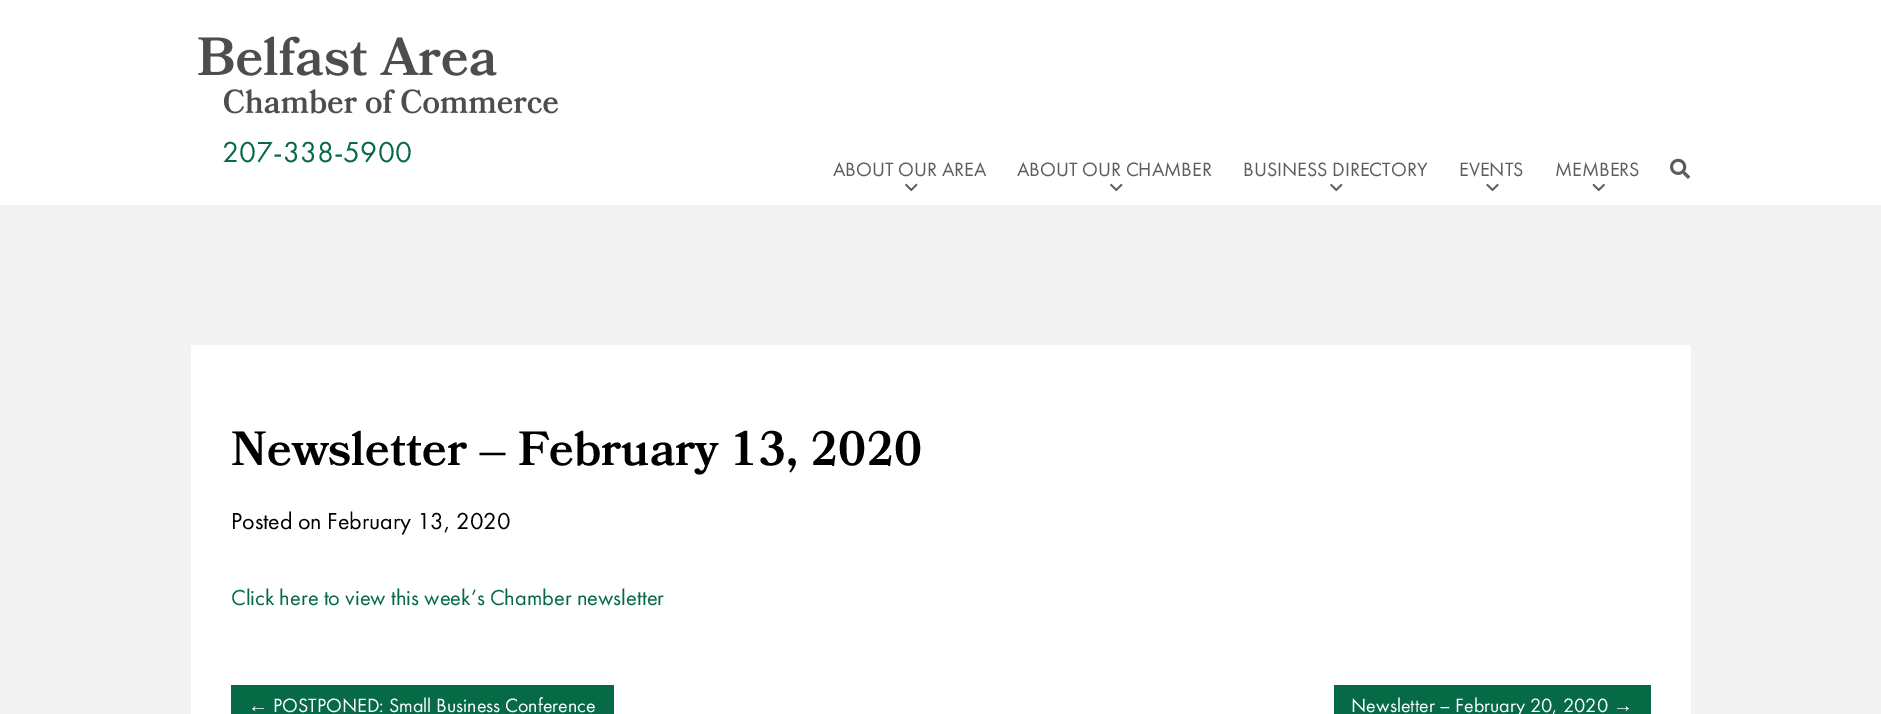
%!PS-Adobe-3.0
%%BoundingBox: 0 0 1881 714
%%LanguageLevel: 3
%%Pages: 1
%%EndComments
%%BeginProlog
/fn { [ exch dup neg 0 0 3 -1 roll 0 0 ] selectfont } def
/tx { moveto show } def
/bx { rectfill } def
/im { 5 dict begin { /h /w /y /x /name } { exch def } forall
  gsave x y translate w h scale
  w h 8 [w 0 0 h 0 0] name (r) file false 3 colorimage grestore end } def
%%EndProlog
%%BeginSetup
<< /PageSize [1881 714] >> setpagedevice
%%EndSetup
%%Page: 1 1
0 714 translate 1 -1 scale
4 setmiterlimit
1 setgray
0 0 1881 714 bx
(image0.raw) 198 36 360 78 im
/FuturaPT-Regular 30 fn
0.027 0.416 0.278 setrgbcolor
(207-338-5900) 222 162 tx
/FuturaPT-Regular 20 fn
0.361 setgray
(ABOUT OUR AREA) 833 176 tx
(image1.raw) 905 183 13 9 im
(ABOUT OUR CHAMBER) 1017 176 tx
(image1.raw) 1110 183 13 9 im
(BUSINESS DIRECTORY) 1243 176 tx
(image1.raw) 1330 183 13 9 im
(EVENTS) 1459 176 tx
(image2.raw) 1486 183 13 9 im
(MEMBERS) 1555 176 tx
(image3.raw) 1592 183 13 9 im
(image4.raw) 1670 158 20 21 im
0.953 setgray
0 205 1881 509 bx
1 setgray
191 345 1500 369 bx
/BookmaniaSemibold-SemiBold 48 fn
0 setgray
(Newsletter – February 13, 2020) 231 465 tx
/FuturaPT-Regular 24 fn
(Posted on February 13, 2020) 231 529 tx
/FuturaPT-Regular 22.5 fn
0.027 0.416 0.278 setrgbcolor
(Click here to view this week’s Chamber newsletter) 231 605 tx
231 685 383 29 bx
/LiberationSans-Regular 20 fn
1 setgray
(←) 248 712 tx
/FuturaPT-Regular 20 fn
(POSTPONED: Small Business Conference) 273 712 tx
0.027 0.416 0.278 setrgbcolor
1334 685 317 29 bx
1 setgray
(Newsletter – February 20, 2020) 1351 712 tx
/LiberationSans-Regular 20 fn
(→) 1613 712 tx
showpage
%%EOF
